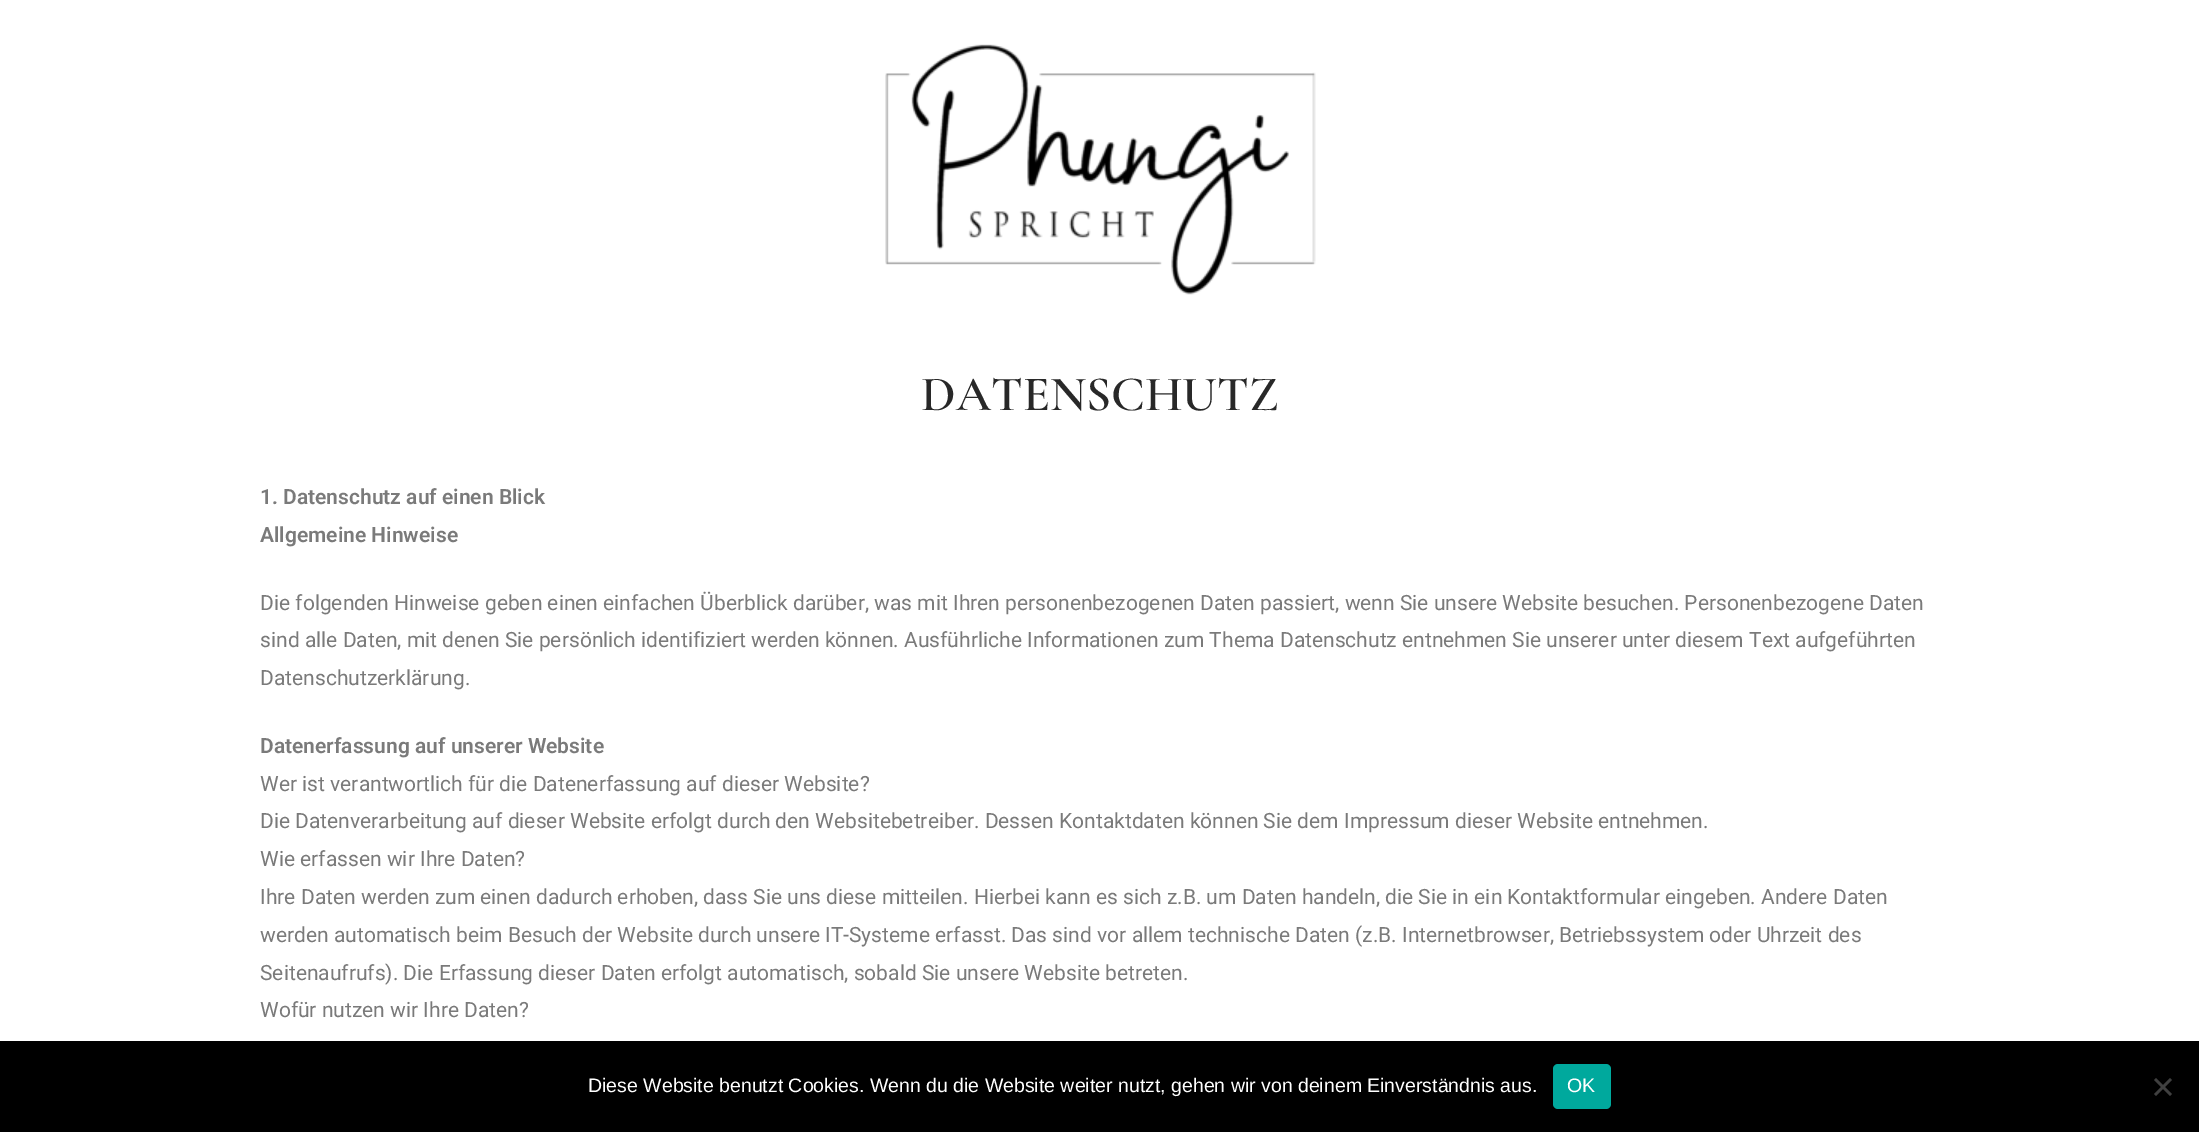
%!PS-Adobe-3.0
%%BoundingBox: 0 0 2199 1132
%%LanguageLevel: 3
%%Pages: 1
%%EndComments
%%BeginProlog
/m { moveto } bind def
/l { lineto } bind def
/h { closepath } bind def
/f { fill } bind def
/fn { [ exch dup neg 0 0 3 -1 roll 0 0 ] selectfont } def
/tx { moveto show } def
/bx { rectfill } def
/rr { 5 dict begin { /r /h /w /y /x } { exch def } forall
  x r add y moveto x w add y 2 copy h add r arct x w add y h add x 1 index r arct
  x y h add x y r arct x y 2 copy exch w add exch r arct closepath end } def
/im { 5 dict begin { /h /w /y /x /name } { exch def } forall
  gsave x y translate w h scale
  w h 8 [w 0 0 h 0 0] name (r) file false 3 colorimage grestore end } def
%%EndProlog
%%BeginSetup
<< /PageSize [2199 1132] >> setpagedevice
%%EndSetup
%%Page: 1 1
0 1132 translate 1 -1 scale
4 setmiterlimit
1 setgray
0 0 2199 1132 bx
(image0.raw) 885 44 431 251 im
/CormorantGaramond-SemiBold 49.5 fn
0.157 setgray
(DATENSCHUTZ) 921 410 tx
/Roboto-SemiBold 21 fn
0.478 setgray
(1. Datenschutz auf einen Blick) 260 504 tx
(Allgemeine Hinweise) 260 542 tx
/Roboto-Regular 21 fn
(Die folgenden Hinweise geben einen einfachen Überblick darüber, was mit Ihren personenbezogenen Daten passiert, wenn Sie unsere Website besuchen. Personenbezogene Daten) 260 610 tx
(sind alle Daten, mit denen Sie persönlich identifiziert werden können. Ausführliche Informationen zum Thema Datenschutz entnehmen Sie unserer unter diesem Text aufgeführten) 260 647 tx
(Datenschutzerklärung.) 260 685 tx
/Roboto-SemiBold 21 fn
(Datenerfassung auf unserer Website) 260 753 tx
/Roboto-Regular 21 fn
(Wer ist verantwortlich für die Datenerfassung auf dieser Website?) 260 791 tx
(Die Datenverarbeitung auf dieser Website erfolgt durch den Websitebetreiber. Dessen Kontaktdaten können Sie dem Impressum dieser Website entnehmen.) 260 828 tx
(Wie erfassen wir Ihre Daten?) 260 866 tx
(Ihre Daten werden zum einen dadurch erhoben, dass Sie uns diese mitteilen. Hierbei kann es sich z.B. um Daten handeln, die Sie in ein Kontaktformular eingeben. Andere Daten) 260 904 tx
(werden automatisch beim Besuch der Website durch unsere IT-Systeme erfasst. Das sind vor allem technische Daten \(z.B. Internetbrowser, Betriebssystem oder Uhrzeit des) 260 942 tx
(Seitenaufrufs\). Die Erfassung dieser Daten erfolgt automatisch, sobald Sie unsere Website betreten.) 260 980 tx
(Wofür nutzen wir Ihre Daten?) 260 1017 tx
0 setgray
0 1041 2199 91 bx
/LiberationSans-Regular 19.5 fn
1 setgray
(Diese Website benutzt Cookies. Wenn du die Website weiter nutzt, gehen wir von deinem Einverständnis aus.) 588 1092 tx
0 0.663 0.616 setrgbcolor
1553 1064 58 45 5 rr f
1 setgray
(OK) 1567 1092 tx
0.251 setgray
2170 1078 m 2172 1080 l 2156 1096 l 2154 1094 l h f
2154 1080 m 2156 1078 l 2172 1094 l 2170 1096 l h f
showpage
%%EOF
